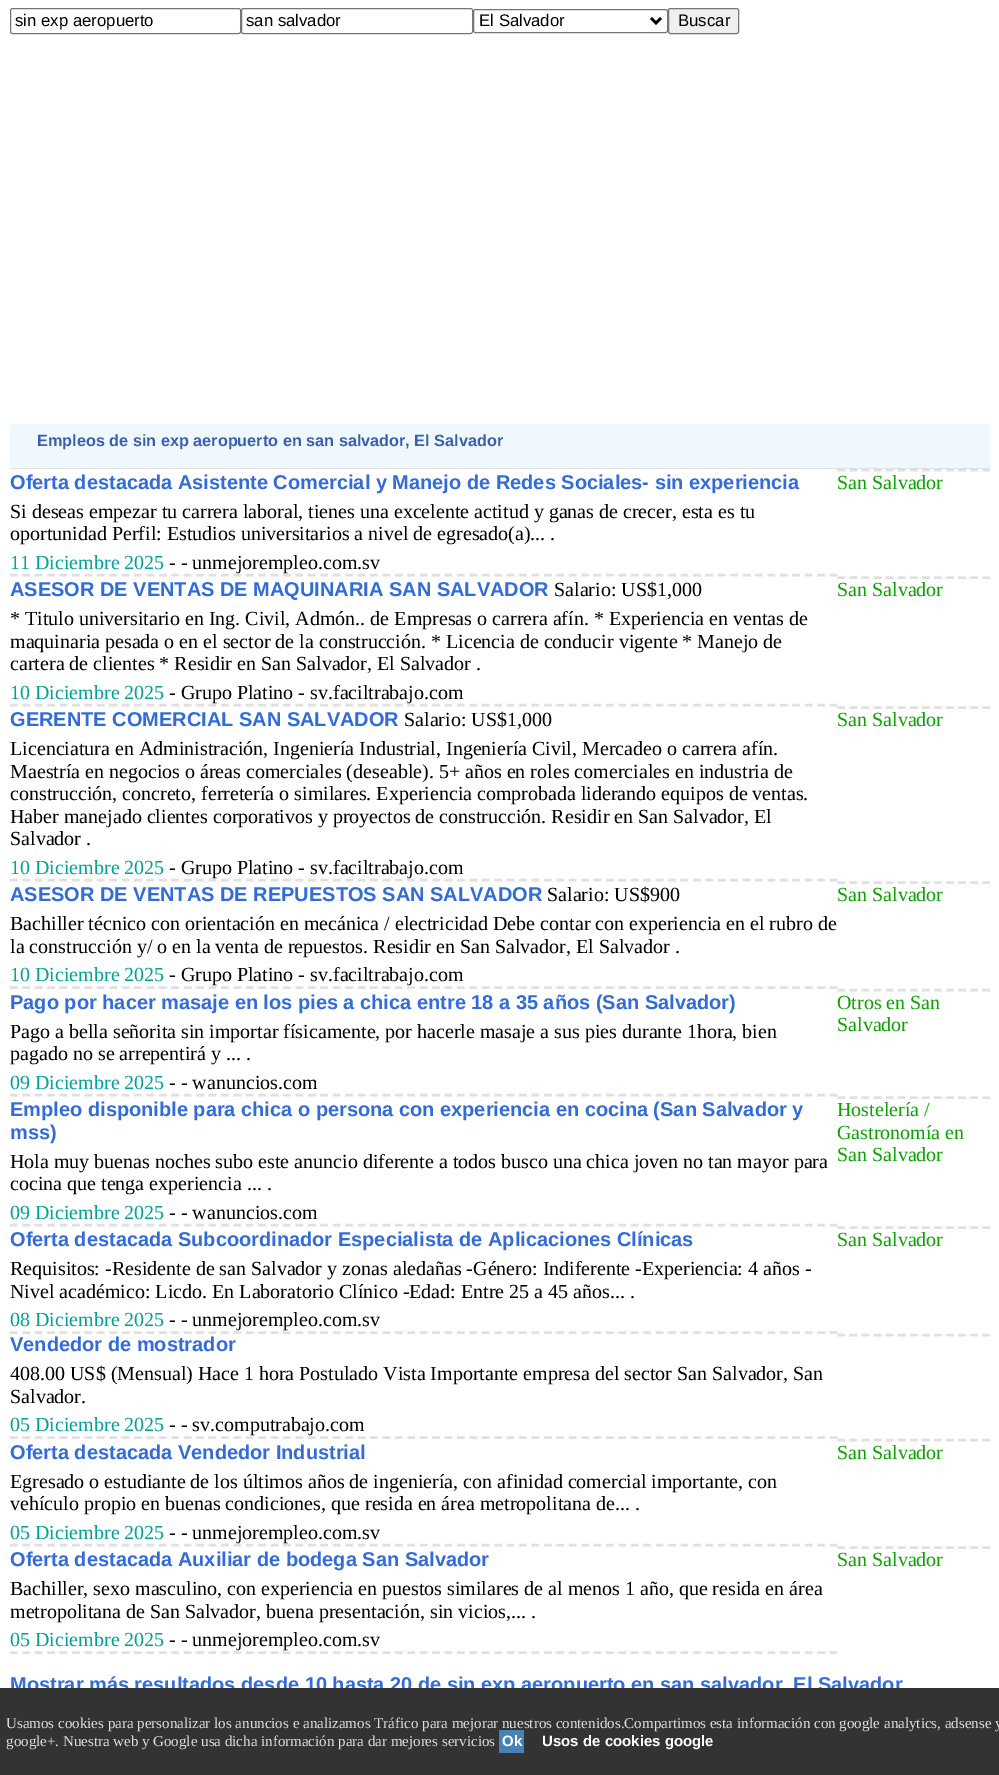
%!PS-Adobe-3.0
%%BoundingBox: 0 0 999 1775
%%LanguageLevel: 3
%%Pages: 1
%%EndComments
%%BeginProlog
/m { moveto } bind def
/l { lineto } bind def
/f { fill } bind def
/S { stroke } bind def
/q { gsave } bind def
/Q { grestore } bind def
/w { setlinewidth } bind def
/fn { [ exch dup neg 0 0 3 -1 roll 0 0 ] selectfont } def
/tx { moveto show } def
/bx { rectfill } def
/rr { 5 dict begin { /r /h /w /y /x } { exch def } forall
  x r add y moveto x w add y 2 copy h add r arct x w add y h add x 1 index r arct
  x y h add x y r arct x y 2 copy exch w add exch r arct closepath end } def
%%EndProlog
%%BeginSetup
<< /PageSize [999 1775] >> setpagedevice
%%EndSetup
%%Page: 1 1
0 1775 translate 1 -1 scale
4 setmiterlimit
1 setgray
0 0 999 1775 bx
0.463 setgray
10.5 8.5 230 25 2 rr S
/LiberationSans-Regular 16.75 fn
0 setgray
(sin exp aeropuerto) 15 26 tx
0.463 setgray
241.5 8.5 231 25 2 rr S
0 setgray
(san salvador) 246 26 tx
0.463 setgray
473.5 9.5 194 23 2 rr S
0 setgray
2.5 w
651 18 m 656 23 l 661 18 l S
(El Salvador) 479 26 tx
0.937 setgray
668.5 8.5 70 25 2 rr q f Q
0.463 setgray
1 w
S
0 setgray
(Buscar) 678 26 tx
0.941 0.973 1 setrgbcolor
10 424 980 44 bx
0.878 setgray
10 468 980 1 bx
/LiberationSans-Bold 16.25 fn
0.231 0.373 0.671 setrgbcolor
(Empleos de sin exp aeropuerto en san salvador, El Salvador) 37 446 tx
0.878 setgray
2.5 w
[7.5 4.92] 0 setdash
10 575 m 837.5 575 l S
/LiberationSans-Bold 20 fn
0.196 0.424 0.851 setrgbcolor
(Oferta destacada Asistente Comercial y Manejo de Redes Sociales- sin experiencia) 10 489 tx
/LiberationSerif-Regular 20 fn
0 setgray
(Si deseas empezar tu carrera laboral, tienes una excelente actitud y ganas de crecer, esta es tu) 10 518 tx
(oportunidad Perfil: Estudios universitarios a nivel de egresado\(a\)... .) 10 540 tx
0.004 0.635 0.592 setrgbcolor
(11 Diciembre 2025) 10 569 tx
0 setgray
(- - unmejorempleo.com.sv) 169 569 tx
0.878 setgray
[7.5 4.59] 0 setdash
837.5 470 m 990 470 l S
0.047 0.635 0.004 setrgbcolor
(San Salvador) 837 489 tx
0.878 setgray
[7.5 4.92] 0 setdash
10 705 m 837.5 705 l S
/LiberationSans-Bold 20 fn
0.196 0.424 0.851 setrgbcolor
(ASESOR DE VENTAS DE MAQUINARIA SAN SALVADOR) 10 596 tx
/LiberationSerif-Regular 20 fn
0 setgray
(Salario: US$1,000) 554 596 tx
(* Titulo universitario en Ing. Civil, Admón.. de Empresas o carrera afín. * Experiencia en ventas de) 10 625 tx
(maquinaria pesada o en el sector de la construcción. * Licencia de conducir vigente * Manejo de) 10 648 tx
(cartera de clientes * Residir en San Salvador, El Salvador .) 10 670 tx
0.004 0.635 0.592 setrgbcolor
(10 Diciembre 2025) 10 699 tx
0 setgray
(- Grupo Platino - sv.faciltrabajo.com) 169 699 tx
0.878 setgray
[7.5 4.59] 0 setdash
837.5 577.5 m 990 577.5 l S
0.047 0.635 0.004 setrgbcolor
(San Salvador) 837 596 tx
0.878 setgray
[7.5 4.92] 0 setdash
10 880 m 837.5 880 l S
/LiberationSans-Bold 20 fn
0.196 0.424 0.851 setrgbcolor
(GERENTE COMERCIAL SAN SALVADOR) 10 726 tx
/LiberationSerif-Regular 20 fn
0 setgray
(Salario: US$1,000) 404 726 tx
(Licenciatura en Administración, Ingeniería Industrial, Ingeniería Civil, Mercadeo o carrera afín.) 10 755 tx
(Maestría en negocios o áreas comerciales \(deseable\). 5+ años en roles comerciales en industria de) 10 778 tx
(construcción, concreto, ferretería o similares. Experiencia comprobada liderando equipos de ventas.) 10 800 tx
(Haber manejado clientes corporativos y proyectos de construcción. Residir en San Salvador, El) 10 823 tx
(Salvador .) 10 845 tx
0.004 0.635 0.592 setrgbcolor
(10 Diciembre 2025) 10 874 tx
0 setgray
(- Grupo Platino - sv.faciltrabajo.com) 169 874 tx
0.878 setgray
[7.5 4.59] 0 setdash
837.5 707.5 m 990 707.5 l S
0.047 0.635 0.004 setrgbcolor
(San Salvador) 837 726 tx
0.878 setgray
[7.5 4.92] 0 setdash
10 987.5 m 837.5 987.5 l S
/LiberationSans-Bold 20 fn
0.196 0.424 0.851 setrgbcolor
(ASESOR DE VENTAS DE REPUESTOS SAN SALVADOR) 10 901 tx
/LiberationSerif-Regular 20 fn
0 setgray
(Salario: US$900) 547 901 tx
(Bachiller técnico con orientación en mecánica / electricidad Debe contar con experiencia en el rubro de) 10 930 tx
(la construcción y/ o en la venta de repuestos. Residir en San Salvador, El Salvador .) 10 953 tx
0.004 0.635 0.592 setrgbcolor
(10 Diciembre 2025) 10 981 tx
0 setgray
(- Grupo Platino - sv.faciltrabajo.com) 169 981 tx
0.878 setgray
[7.5 4.59] 0 setdash
837.5 882.5 m 990 882.5 l S
0.047 0.635 0.004 setrgbcolor
(San Salvador) 837 901 tx
0.878 setgray
[7.5 4.92] 0 setdash
10 1095 m 837.5 1095 l S
/LiberationSans-Bold 20 fn
0.196 0.424 0.851 setrgbcolor
(Pago por hacer masaje en los pies a chica entre 18 a 35 años \(San Salvador\)) 10 1009 tx
/LiberationSerif-Regular 20 fn
0 setgray
(Pago a bella señorita sin importar físicamente, por hacerle masaje a sus pies durante 1hora, bien) 10 1038 tx
(pagado no se arrepentirá y ... .) 10 1060 tx
0.004 0.635 0.592 setrgbcolor
(09 Diciembre 2025) 10 1089 tx
0 setgray
(- - wanuncios.com) 169 1089 tx
0.878 setgray
[7.5 4.59] 0 setdash
837.5 990 m 990 990 l S
0.047 0.635 0.004 setrgbcolor
(Otros en San) 837 1009 tx
(Salvador) 837 1031 tx
0.878 setgray
[7.5 4.92] 0 setdash
10 1225 m 837.5 1225 l S
/LiberationSans-Bold 20 fn
0.196 0.424 0.851 setrgbcolor
(Empleo disponible para chica o persona con experiencia en cocina \(San Salvador y) 10 1116 tx
(mss\)) 10 1139 tx
/LiberationSerif-Regular 20 fn
0 setgray
(Hola muy buenas noches subo este anuncio diferente a todos busco una chica joven no tan mayor para) 10 1168 tx
(cocina que tenga experiencia ... .) 10 1190 tx
0.004 0.635 0.592 setrgbcolor
(09 Diciembre 2025) 10 1219 tx
0 setgray
(- - wanuncios.com) 169 1219 tx
0.878 setgray
[7.5 4.59] 0 setdash
837.5 1097.5 m 990 1097.5 l S
0.047 0.635 0.004 setrgbcolor
(Hostelería /) 837 1116 tx
(Gastronomía en) 837 1139 tx
(San Salvador) 837 1161 tx
0.878 setgray
[7.5 4.92] 0 setdash
10 1332.5 m 837.5 1332.5 l S
/LiberationSans-Bold 20 fn
0.196 0.424 0.851 setrgbcolor
(Oferta destacada Subcoordinador Especialista de Aplicaciones Clínicas) 10 1246 tx
/LiberationSerif-Regular 20 fn
0 setgray
(Requisitos: -Residente de san Salvador y zonas aledañas -Género: Indiferente -Experiencia: 4 años -) 10 1275 tx
(Nivel académico: Licdo. En Laboratorio Clínico -Edad: Entre 25 a 45 años... .) 10 1298 tx
0.004 0.635 0.592 setrgbcolor
(08 Diciembre 2025) 10 1326 tx
0 setgray
(- - unmejorempleo.com.sv) 169 1326 tx
0.878 setgray
[7.5 4.59] 0 setdash
837.5 1227.5 m 990 1227.5 l S
0.047 0.635 0.004 setrgbcolor
(San Salvador) 837 1246 tx
0.878 setgray
837.5 1335 m 990 1335 l S
[7.5 4.92] 0 setdash
10 1437.5 m 837.5 1437.5 l S
/LiberationSans-Bold 20 fn
0.196 0.424 0.851 setrgbcolor
(Vendedor de mostrador) 10 1351 tx
/LiberationSerif-Regular 20 fn
0 setgray
(408.00 US$ \(Mensual\) Hace 1 hora Postulado Vista Importante empresa del sector San Salvador, San) 10 1380 tx
(Salvador.) 10 1403 tx
0.004 0.635 0.592 setrgbcolor
(05 Diciembre 2025) 10 1431 tx
0 setgray
(- - sv.computrabajo.com) 169 1431 tx
0.878 setgray
10 1545 m 837.5 1545 l S
/LiberationSans-Bold 20 fn
0.196 0.424 0.851 setrgbcolor
(Oferta destacada Vendedor Industrial) 10 1459 tx
/LiberationSerif-Regular 20 fn
0 setgray
(Egresado o estudiante de los últimos años de ingeniería, con afinidad comercial importante, con) 10 1488 tx
(vehículo propio en buenas condiciones, que resida en área metropolitana de... .) 10 1510 tx
0.004 0.635 0.592 setrgbcolor
(05 Diciembre 2025) 10 1539 tx
0 setgray
(- - unmejorempleo.com.sv) 169 1539 tx
0.878 setgray
[7.5 4.59] 0 setdash
837.5 1440 m 990 1440 l S
0.047 0.635 0.004 setrgbcolor
(San Salvador) 837 1459 tx
0.878 setgray
[7.5 4.92] 0 setdash
10 1652.5 m 837.5 1652.5 l S
/LiberationSans-Bold 20 fn
0.196 0.424 0.851 setrgbcolor
(Oferta destacada Auxiliar de bodega San Salvador) 10 1566 tx
/LiberationSerif-Regular 20 fn
0 setgray
(Bachiller, sexo masculino, con experiencia en puestos similares de al menos 1 año, que resida en área) 10 1595 tx
(metropolitana de San Salvador, buena presentación, sin vicios,... .) 10 1618 tx
0.004 0.635 0.592 setrgbcolor
(05 Diciembre 2025) 10 1646 tx
0 setgray
(- - unmejorempleo.com.sv) 169 1646 tx
0.878 setgray
[7.5 4.59] 0 setdash
837.5 1547.5 m 990 1547.5 l S
0.047 0.635 0.004 setrgbcolor
(San Salvador) 837 1566 tx
/LiberationSans-Bold 20 fn
0.196 0.424 0.851 setrgbcolor
(Mostrar más resultados desde 10 hasta 20 de sin exp aeropuerto en san salvador, El Salvador) 10 1691 tx
0.2 setgray
0 1688 999 87 bx
/LiberationSerif-Regular 15 fn
0.867 setgray
(Usamos cookies para personalizar los anuncios e analizamos Tráfico para mejorar nuestros contenidos.Compartimos esta información con google analytics, adsense y) 6 1728 tx
(google+. Nuestra web y Google usa dicha información para dar mejores servicios) 6 1746 tx
0.275 0.51 0.706 setrgbcolor
499 1730 25 23 bx
/LiberationSans-Bold 15 fn
1 setgray
(Ok) 502 1746 tx
(Usos de cookies google) 542 1746 tx
showpage
%%EOF
